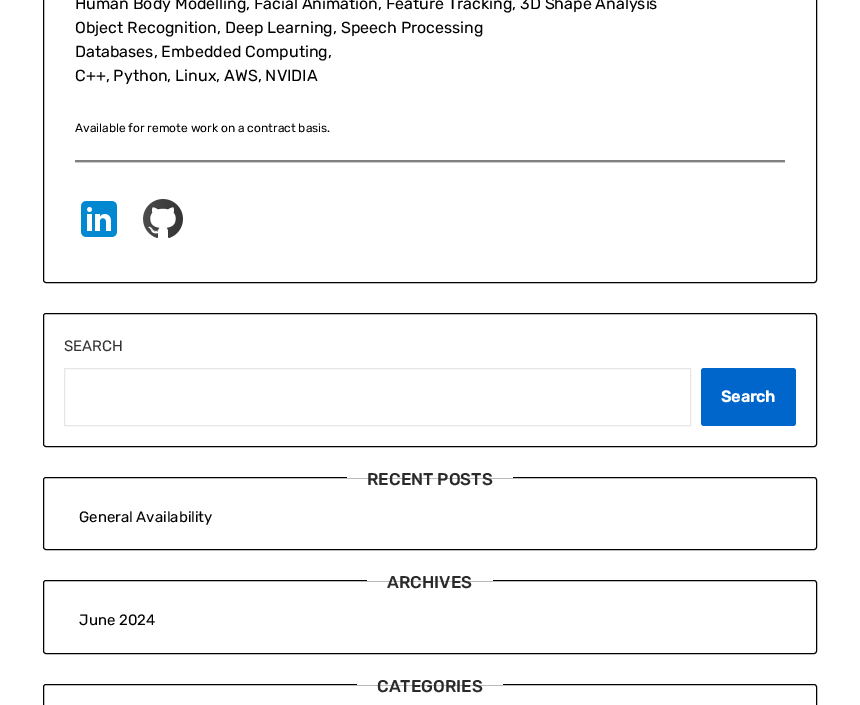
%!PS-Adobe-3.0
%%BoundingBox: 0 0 860 705
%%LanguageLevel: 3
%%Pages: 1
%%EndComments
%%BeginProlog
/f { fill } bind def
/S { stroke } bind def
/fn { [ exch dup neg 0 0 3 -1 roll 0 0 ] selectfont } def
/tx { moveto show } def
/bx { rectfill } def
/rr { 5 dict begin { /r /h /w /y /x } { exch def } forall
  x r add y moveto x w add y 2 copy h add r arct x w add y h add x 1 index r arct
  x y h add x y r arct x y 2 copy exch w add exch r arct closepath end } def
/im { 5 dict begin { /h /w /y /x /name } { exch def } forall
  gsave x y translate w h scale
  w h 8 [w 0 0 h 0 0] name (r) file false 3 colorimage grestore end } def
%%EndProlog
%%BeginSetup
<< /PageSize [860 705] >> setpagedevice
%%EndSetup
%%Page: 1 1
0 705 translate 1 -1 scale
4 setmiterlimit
1 setgray
0 0 860 705 bx
0 setgray
43.5 -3.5 773 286 2.5 rr S
/Rubik-Regular 16 fn
(Human Body Modelling, Facial Animation, Feature Tracking, 3D Shape Analysis) 75 9 tx
(Object Recognition, Deep Learning, Speech Processing) 75 33 tx
(Databases, Embedded Computing,) 75 57 tx
(C++, Python, Linux, AWS, NVIDIA) 75 81 tx
/Rubik-Regular 12 fn
(Available for remote work on a contract basis.) 75 132 tx
0.8 setgray
75 162 710 1 bx
0.502 setgray
75 160 710 2 bx
(image0.raw) 81 201 36 36 im
(image1.raw) 143 199 40 40 im
0 setgray
43.5 313.5 773 133 2.5 rr S
/Rubik-Regular 15 fn
0.2 setgray
(SEARCH) 64 351 tx
0.898 0.902 0.914 setrgbcolor
64.5 368.5 626 57 rectstroke
0 0.4 0.8 setrgbcolor
701 368 95 58 3 rr f
/Rubik-Bold 16 fn
1 setgray
(Search) 721 402 tx
0 setgray
43.5 477.5 773 72 2.5 rr S
1 setgray
347 477 166 1 bx
/Rubik-Medium 17 fn
0.169 setgray
(RECENT POSTS) 367 485 tx
/Rubik-Regular 15 fn
0 setgray
(General Availability) 79 522 tx
43.5 580.5 773 73 2.5 rr S
1 setgray
367 580 126 1 bx
/Rubik-Medium 17 fn
0.169 setgray
(ARCHIVES) 387 588 tx
/Rubik-Regular 15 fn
0 setgray
(June 2024) 79 625 tx
43.5 684.5 773 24 2.5 rr S
1 setgray
357 684 146 1 bx
/Rubik-Medium 17 fn
0.169 setgray
(CATEGORIES) 377 692 tx
showpage
%%EOF
